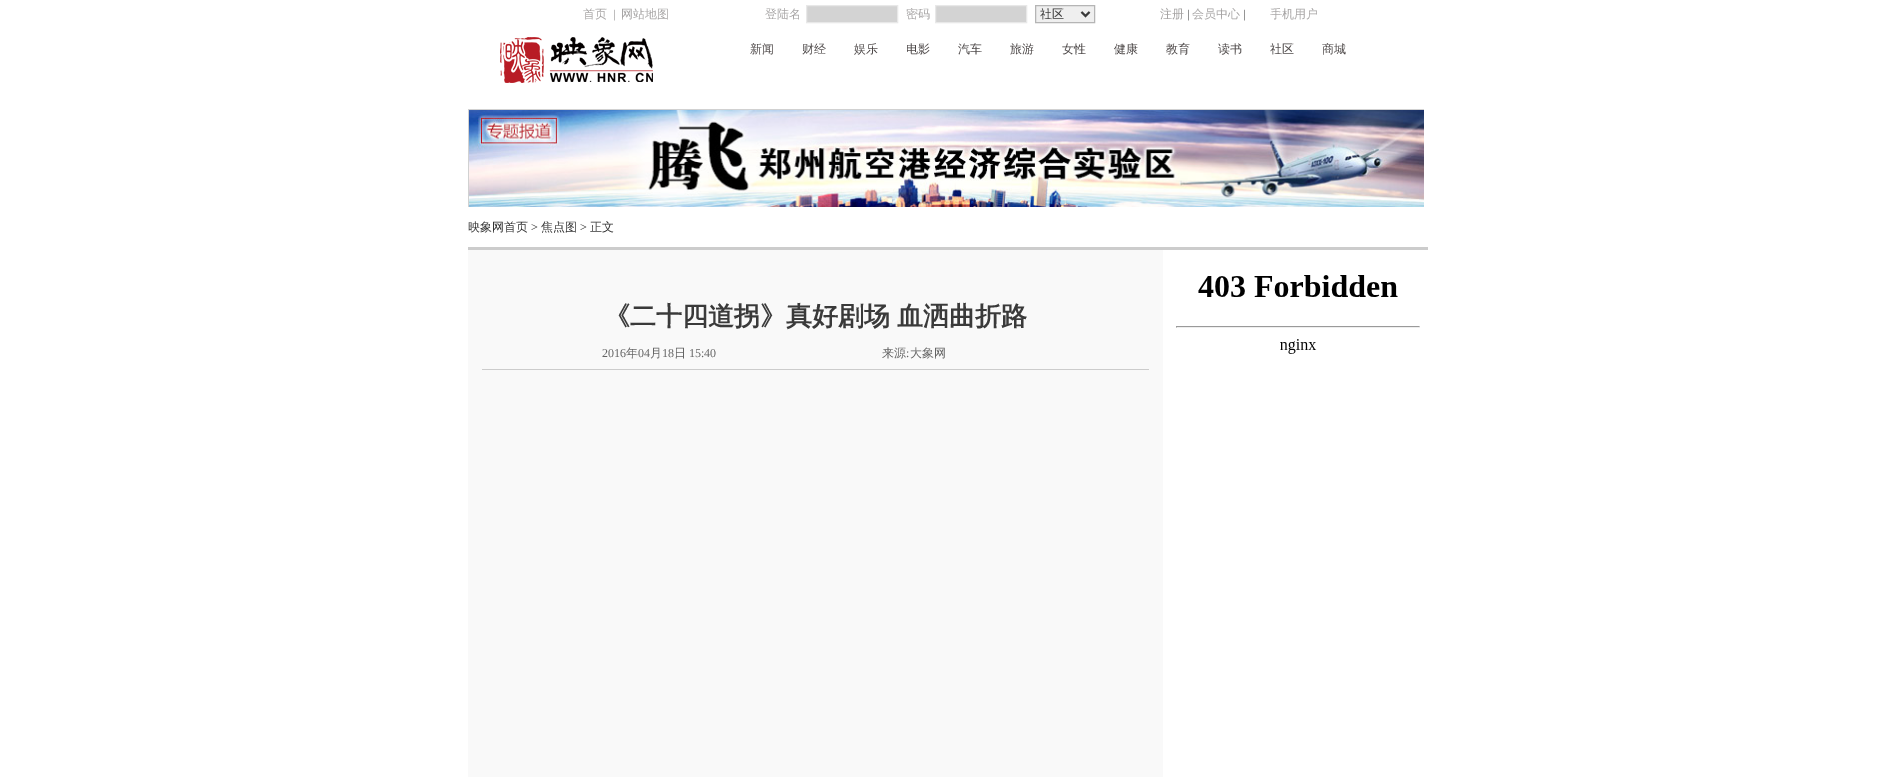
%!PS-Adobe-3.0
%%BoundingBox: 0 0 1896 777
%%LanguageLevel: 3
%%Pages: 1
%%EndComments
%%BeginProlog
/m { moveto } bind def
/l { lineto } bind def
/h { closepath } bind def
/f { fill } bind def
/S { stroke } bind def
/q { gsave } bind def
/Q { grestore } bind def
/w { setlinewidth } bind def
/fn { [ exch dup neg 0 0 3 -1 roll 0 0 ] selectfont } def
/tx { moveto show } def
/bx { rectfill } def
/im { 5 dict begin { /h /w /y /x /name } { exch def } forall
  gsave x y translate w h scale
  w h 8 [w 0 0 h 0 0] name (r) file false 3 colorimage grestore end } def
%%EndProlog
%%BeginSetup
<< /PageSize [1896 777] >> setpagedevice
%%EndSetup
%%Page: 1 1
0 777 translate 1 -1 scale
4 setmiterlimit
1 setgray
0 0 1896 777 bx
/WenQuanYiZenHei-Medium 12 fn
0.655 0.647 0.647 setrgbcolor
(首页) 583 18 tx
/LiberationSerif-Regular 12 fn
0.525 0.522 0.522 setrgbcolor
(|) 613 18 tx
/WenQuanYiZenHei-Medium 12 fn
0.655 0.647 0.647 setrgbcolor
(网站地图) 621 18 tx
(登陆名) 765 18 tx
0.827 setgray
806.5 5.5 m 897.5 5.5 l 897.5 22.5 l 806.5 22.5 l h q f Q
0.91 setgray
S
0.655 0.647 0.647 setrgbcolor
(密码) 906 18 tx
0.827 setgray
935.5 5.5 m 1026.5 5.5 l 1026.5 22.5 l 935.5 22.5 l h q f Q
0.91 setgray
S
0.937 setgray
1035.5 5.5 m 1094.5 5.5 l 1094.5 22.5 l 1035.5 22.5 l h q f Q
0.71 setgray
S
0.227 setgray
2 w
1081.5 12 m 1085.5 16 l 1089.5 12 l S
(社区) 1040 18 tx
0.655 0.647 0.647 setrgbcolor
(注册) 1160 18 tx
/LiberationSerif-Regular 12 fn
0.227 setgray
(|) 1187 18 tx
/WenQuanYiZenHei-Medium 12 fn
0.655 0.647 0.647 setrgbcolor
(会员中心) 1192 18 tx
/LiberationSerif-Regular 12 fn
0.227 setgray
(|) 1243 18 tx
/WenQuanYiZenHei-Medium 12 fn
0.655 0.647 0.647 setrgbcolor
(手机用户) 1270 18 tx
(image0.raw) 500 37 153 46 im
0.302 0.282 0.282 setrgbcolor
(新闻) 750 53 tx
(财经) 802 53 tx
(娱乐) 854 53 tx
(电影) 906 53 tx
(汽车) 958 53 tx
(旅游) 1010 53 tx
(女性) 1062 53 tx
(健康) 1114 53 tx
(教育) 1166 53 tx
(读书) 1218 53 tx
(社区) 1270 53 tx
(商城) 1322 53 tx
q
468 109 956 98 rectclip
0.82 setgray
1 w
468.5 109.5 959 99 rectstroke
Q
(image1.raw) 469 110 955 97 im
0.8 setgray
468 247 960 3 bx
0.2 setgray
(映象网首页) 468 231 tx
/LiberationSerif-Regular 12 fn
(>) 531 231 tx
/WenQuanYiZenHei-Medium 12 fn
(焦点图) 541 231 tx
/LiberationSerif-Regular 12 fn
(>) 580 231 tx
/WenQuanYiZenHei-Medium 12 fn
(正文) 590 231 tx
0.976 setgray
468 250 695 527 bx
/WenQuanYiZenHei-Bold 26 fn
0.227 setgray
604 325 m -1 0 32 (《二十四道拐》真好剧场 血洒曲折路) widthshow
0.8 setgray
482 369 667 1 bx
/LiberationSerif-Regular 12 fn
0.392 setgray
(2016) 602 357 tx
/WenQuanYiZenHei-Medium 12 fn
(年) 626 357 tx
/LiberationSerif-Regular 12 fn
(04) 638 357 tx
/WenQuanYiZenHei-Medium 12 fn
(月) 650 357 tx
/LiberationSerif-Regular 12 fn
(18) 662 357 tx
/WenQuanYiZenHei-Medium 12 fn
(日) 674 357 tx
/LiberationSerif-Regular 12 fn
(15:40) 689 357 tx
/WenQuanYiZenHei-Medium 12 fn
(来源 大象网) 882 357 tx
/LiberationSerif-Regular 12 fn
(:) 906 357 tx
(image2.raw) 1176 275 244 79 im
showpage
%%EOF
